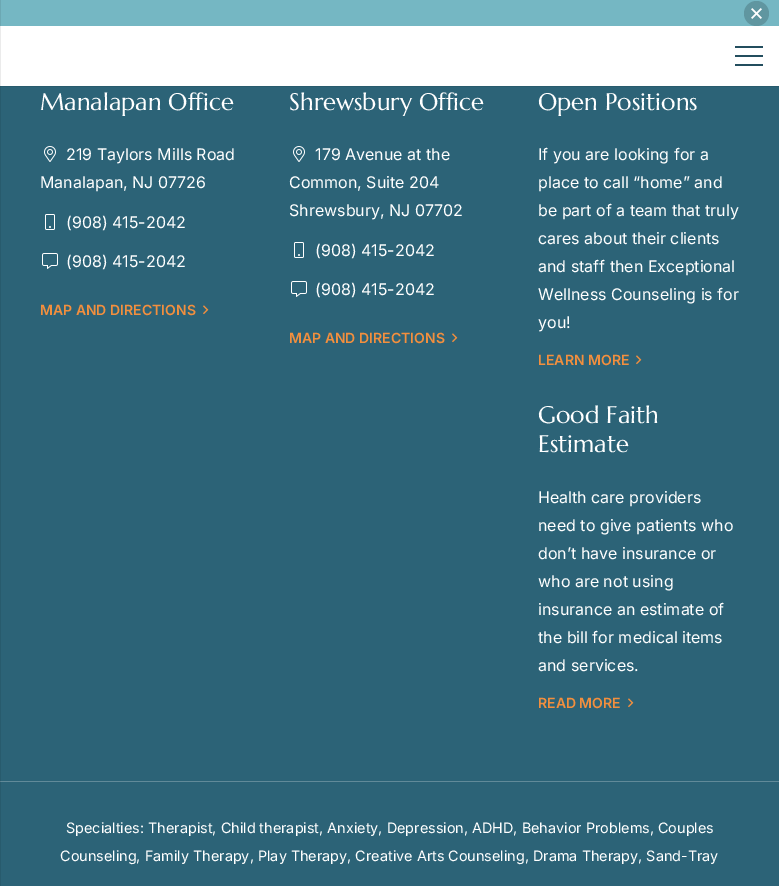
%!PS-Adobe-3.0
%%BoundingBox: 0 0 779 886
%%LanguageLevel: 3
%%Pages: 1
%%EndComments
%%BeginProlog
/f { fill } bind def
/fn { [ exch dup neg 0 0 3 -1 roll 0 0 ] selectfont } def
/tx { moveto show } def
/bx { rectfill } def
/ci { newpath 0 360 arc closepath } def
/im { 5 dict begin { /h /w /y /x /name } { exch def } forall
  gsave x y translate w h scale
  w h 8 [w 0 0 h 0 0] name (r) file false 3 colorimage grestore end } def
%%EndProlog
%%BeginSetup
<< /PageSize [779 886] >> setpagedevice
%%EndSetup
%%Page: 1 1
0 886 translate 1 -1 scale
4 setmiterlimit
0.173 0.388 0.467 setrgbcolor
0 0 779 886 bx
0.459 0.718 0.765 setrgbcolor
1 0 778 26 bx
0.424 0.659 0.702 setrgbcolor
0 0 1 26 bx
0.376 0.588 0.627 setrgbcolor
756.5 13.5 12.5 ci f
(image0.raw) 751 8 11 11 im
0.157 0.357 0.427 setrgbcolor
0 86 779 1 bx
0.145 0.329 0.392 setrgbcolor
0 86 1 1 bx
1 setgray
1 26 778 60 bx
0.922 setgray
0 26 1 60 bx
0.137 0.306 0.369 setrgbcolor
735 55 28 2 bx
735 46 28 2 bx
735 64 28 2 bx
0.157 0.357 0.427 setrgbcolor
0 87 1 799 bx
/Marcellus-Regular 24 fn
1 setgray
(Manalapan Office) 40 110 tx
(image1.raw) 44 146 12 16 im
/Inter-Regular 16 fn
(219 Taylors Mills Road) 66 160 tx
(Manalapan, NJ 07726) 40 188 tx
(image2.raw) 45 214 10 16 im
(\(908\) 415-2042) 66 228 tx
(image3.raw) 42 253 16 16 im
(\(908\) 415-2042) 66 267 tx
/Inter-SemiBold 14 fn
0.949 0.561 0.243 setrgbcolor
(MAP AND DIRECTIONS) 40 315 tx
(image4.raw) 203 305 6 10 im
/Marcellus-Regular 24 fn
1 setgray
(Shrewsbury Office) 289 110 tx
(image1.raw) 293 146 12 16 im
/Inter-Regular 16 fn
(179 Avenue at the) 315 160 tx
(Common, Suite 204) 289 188 tx
(Shrewsbury, NJ 07702) 289 216 tx
(image2.raw) 294 242 10 16 im
(\(908\) 415-2042) 315 256 tx
(image3.raw) 291 281 16 16 im
(\(908\) 415-2042) 315 295 tx
/Inter-SemiBold 14 fn
0.949 0.561 0.243 setrgbcolor
(MAP AND DIRECTIONS) 289 343 tx
(image4.raw) 452 333 6 10 im
/Marcellus-Regular 24 fn
1 setgray
(Open Positions) 538 110 tx
/Inter-Regular 16 fn
(If you are looking for a) 538 160 tx
(place to call “home” and) 538 188 tx
(be part of a team that truly) 538 216 tx
(cares about their clients) 538 244 tx
(and staff then Exceptional) 538 272 tx
(Wellness Counseling is for) 538 300 tx
(you!) 538 328 tx
/Inter-SemiBold 14 fn
0.949 0.561 0.243 setrgbcolor
(LEARN MORE) 538 365 tx
(image4.raw) 636 355 6 10 im
/Marcellus-Regular 24 fn
1 setgray
(Good Faith) 538 423 tx
(Estimate) 538 452 tx
/Inter-Regular 16 fn
(Health care providers) 538 503 tx
(need to give patients who) 538 531 tx
(don’t have insurance or) 538 559 tx
(who are not using) 538 587 tx
(insurance an estimate of) 538 615 tx
(the bill for medical items) 538 643 tx
(and services.) 538 671 tx
/Inter-SemiBold 14 fn
0.949 0.561 0.243 setrgbcolor
(READ MORE) 538 708 tx
(image4.raw) 628 698 6 10 im
0.38 0.541 0.6 setrgbcolor
0 781 779 1 bx
0.349 0.498 0.553 setrgbcolor
0 781 1 1 bx
/Inter-Regular 14.4 fn
1 setgray
(Specialties: Therapist, Child therapist, Anxiety, Depression, ADHD, Behavior Problems, Couples) 66 833 tx
(Counseling, Family Therapy, Play Therapy, Creative Arts Counseling, Drama Therapy, Sand-Tray) 60 861 tx
showpage
%%EOF
